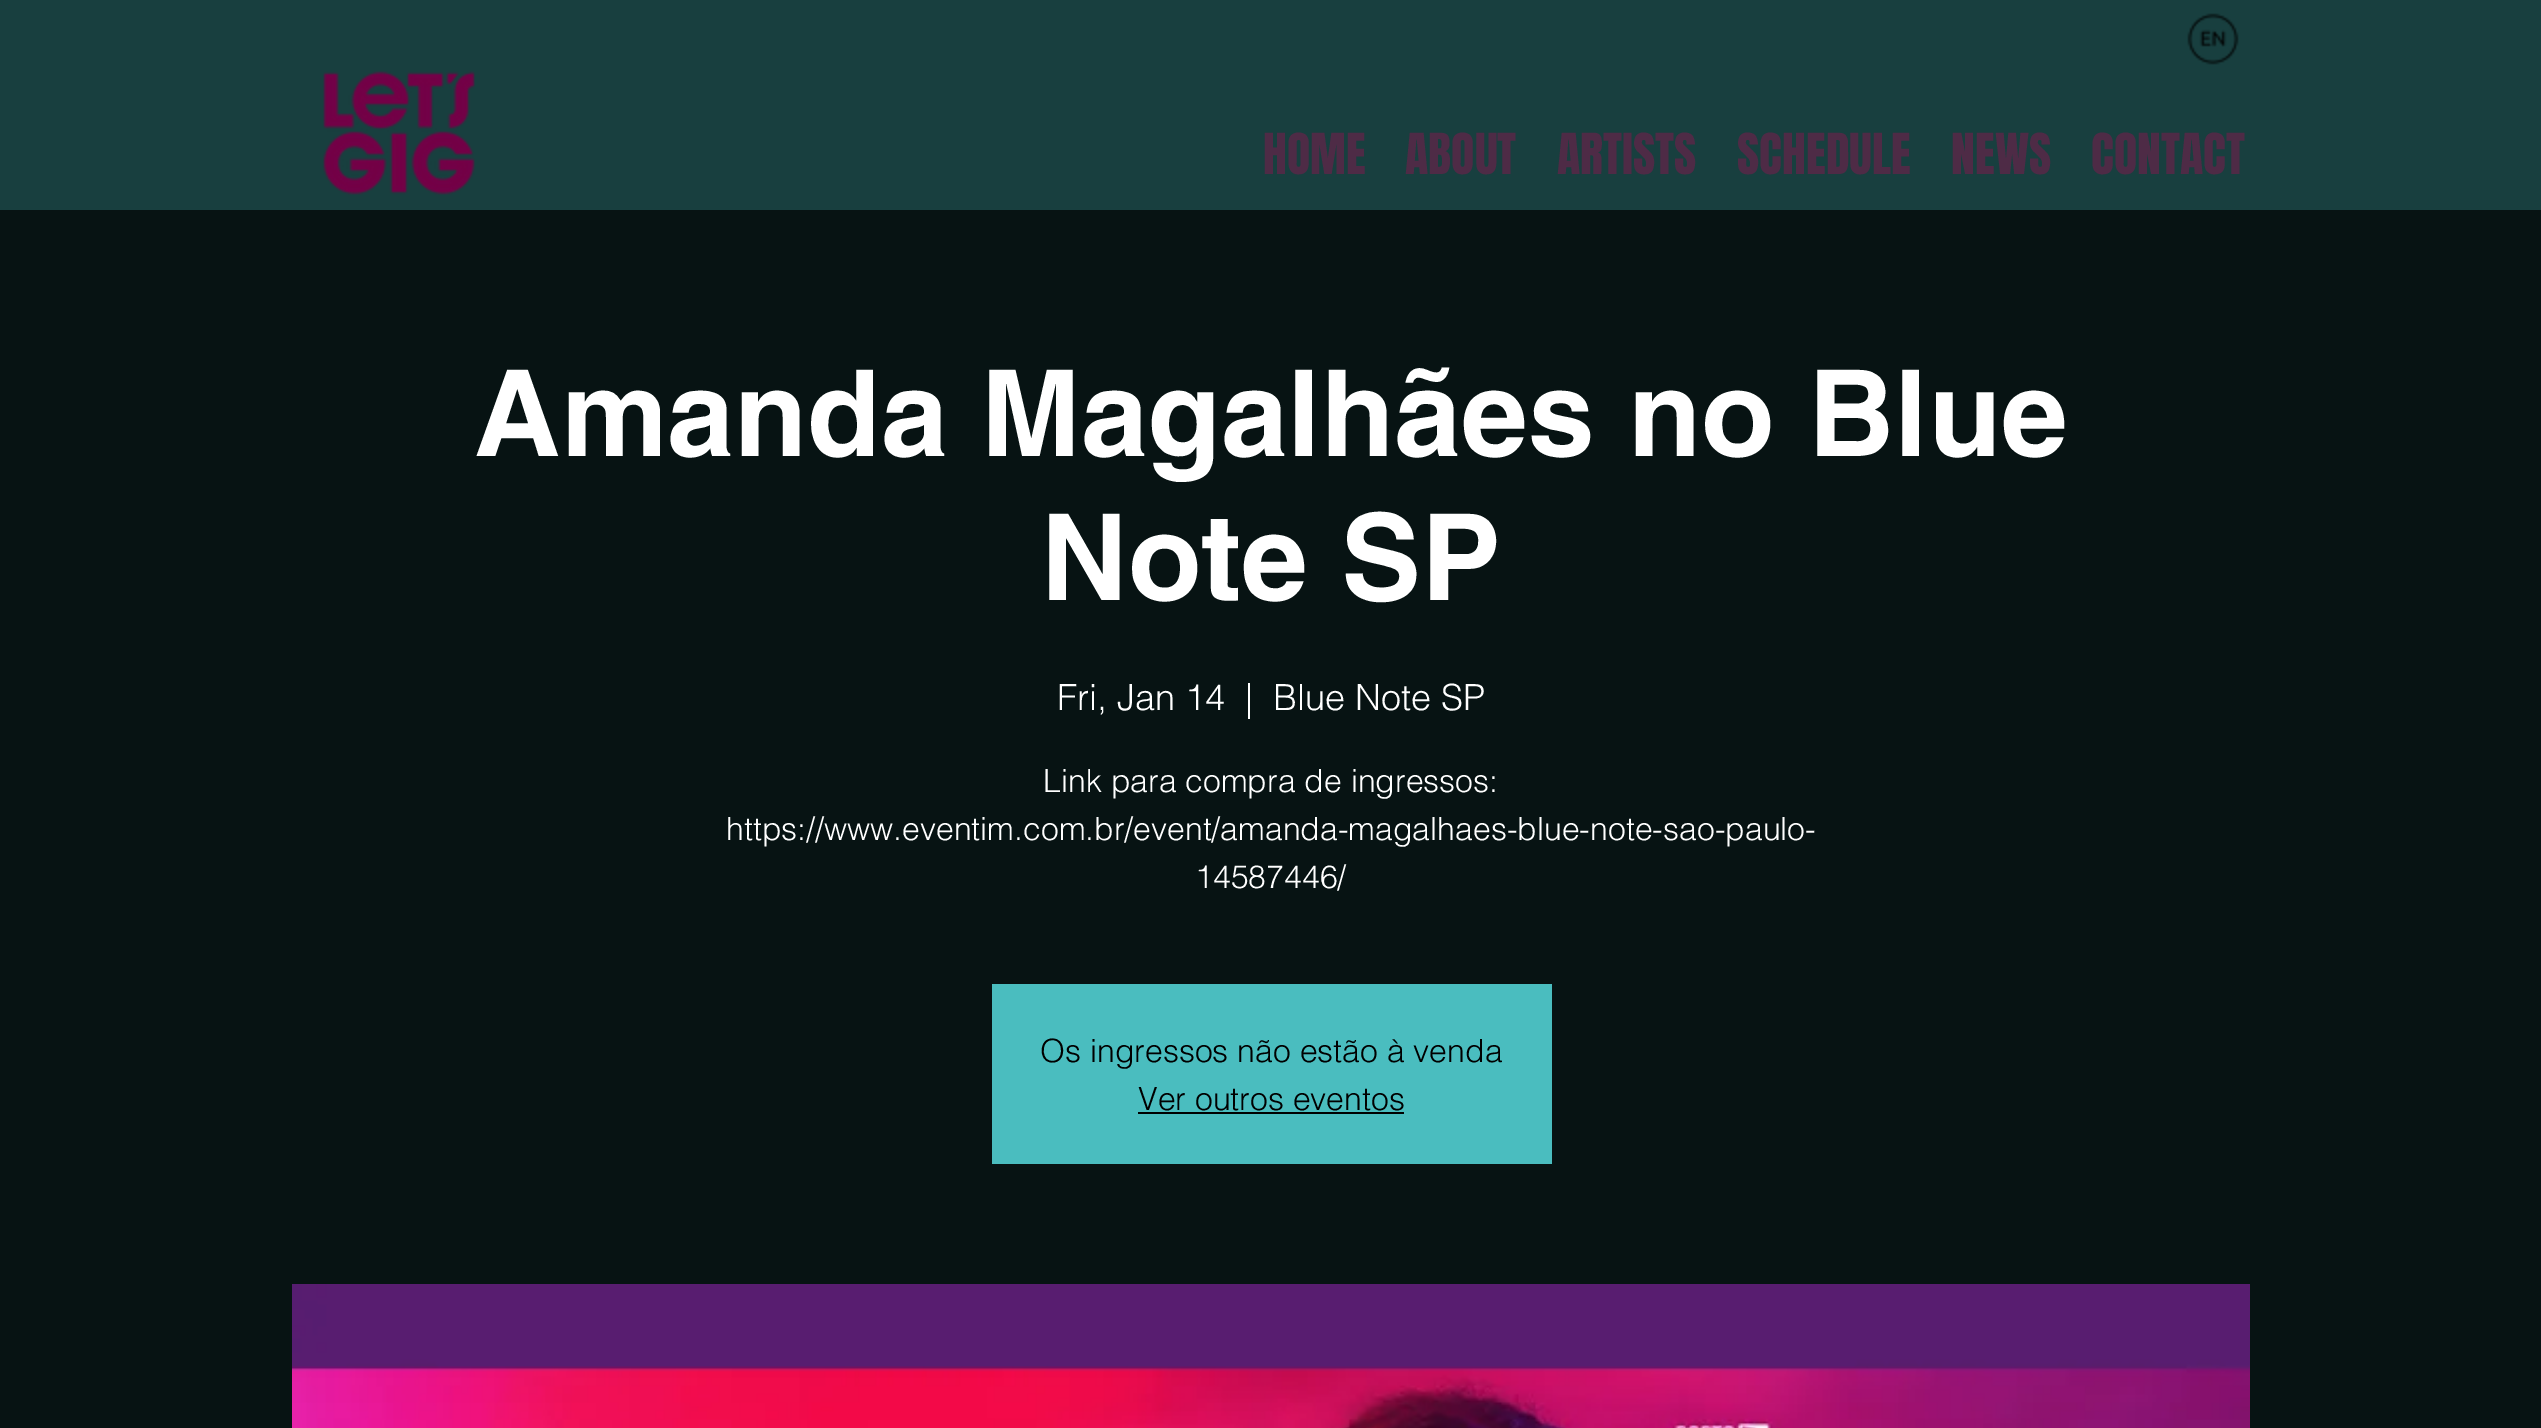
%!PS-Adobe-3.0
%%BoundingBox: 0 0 2541 1428
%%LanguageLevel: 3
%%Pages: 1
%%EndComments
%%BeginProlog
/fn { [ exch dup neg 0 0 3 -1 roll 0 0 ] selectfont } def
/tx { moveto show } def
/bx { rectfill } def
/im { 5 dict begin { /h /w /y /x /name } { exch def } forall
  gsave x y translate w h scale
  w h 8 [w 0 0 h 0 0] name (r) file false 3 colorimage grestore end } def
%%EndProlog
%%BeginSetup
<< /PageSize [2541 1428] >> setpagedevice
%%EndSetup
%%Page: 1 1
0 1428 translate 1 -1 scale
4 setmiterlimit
0.094 0.247 0.247 setrgbcolor
0 0 2541 1428 bx
(image0.raw) 2187 13 52 52 im
(image1.raw) 323 71 152 124 im
/Anton-Regular 48 fn
0.306 0.169 0.275 setrgbcolor
(HOME) 1263 174 tx
(ABOUT) 1405 174 tx
(ARTISTS) 1557 174 tx
(SCHEDULE) 1737 174 tx
(NEWS) 1951 174 tx
(CONTACT) 2091 174 tx
0.027 0.075 0.075 setrgbcolor
0 210 2541 1218 bx
/helvetica-Bold 120 fn
1 setgray
(Amanda Magalhães no Blue) 474 456 tx
(Note SP) 1041 600 tx
/helvetica-Light 36 fn
(Fri, Jan 14) 1057 710 tx
(|) 1245 710 tx
(Blue Note SP) 1273 710 tx
/helvetica-Light 32 fn
(Link para compra de ingressos:) 1043 792 tx
(https://www.eventim.com.br/event/amanda-magalhaes-blue-note-sao-paulo-) 726 840 tx
(14587446/) 1195 888 tx
0.29 0.741 0.749 setrgbcolor
992 984 560 180 bx
0 setgray
(Os ingressos não estão à venda) 1040 1062 tx
(Ver outros eventos) 1138 1110 tx
1138 1112 266 2 bx
(image2.raw) 292 1284 1958 144 im
showpage
%%EOF
